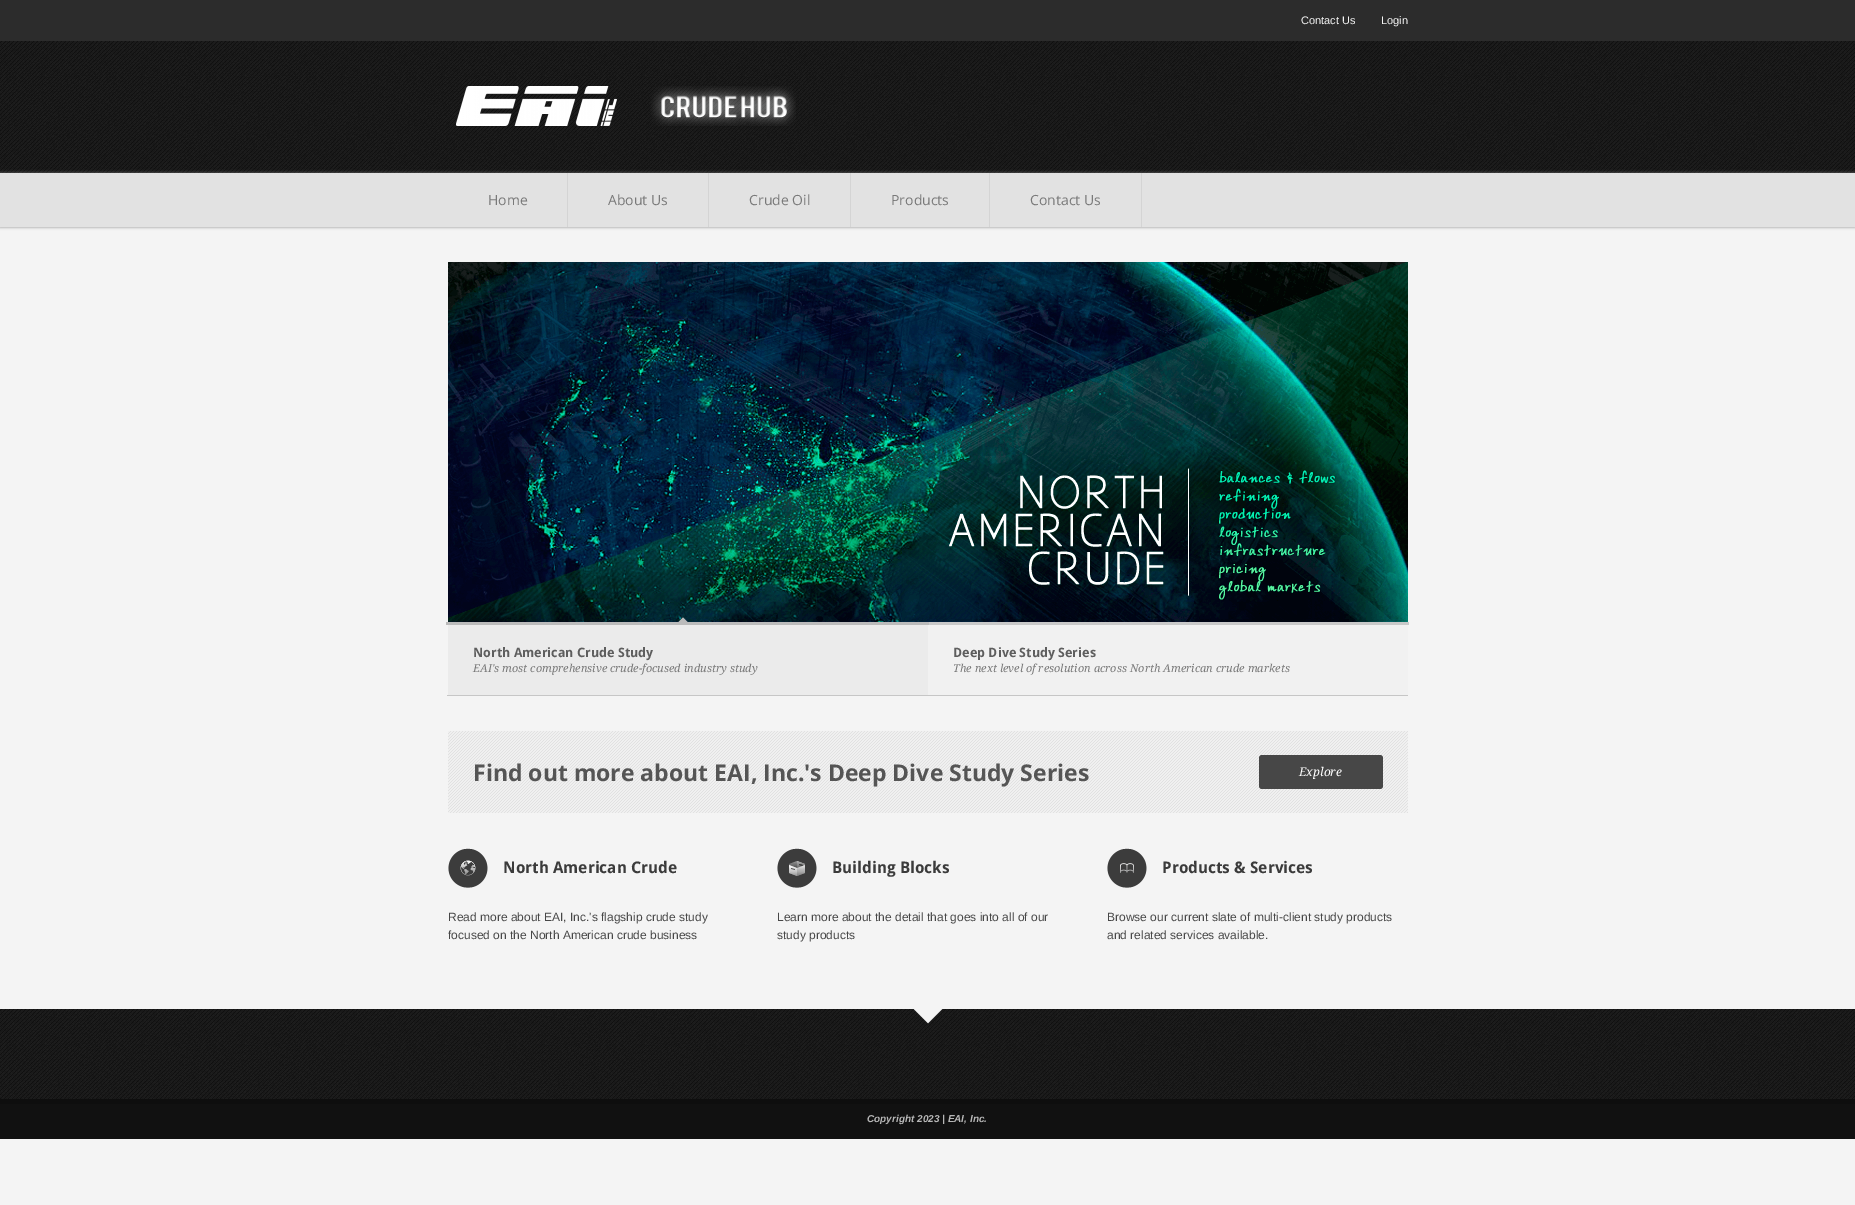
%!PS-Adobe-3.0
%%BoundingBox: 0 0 1855 1205
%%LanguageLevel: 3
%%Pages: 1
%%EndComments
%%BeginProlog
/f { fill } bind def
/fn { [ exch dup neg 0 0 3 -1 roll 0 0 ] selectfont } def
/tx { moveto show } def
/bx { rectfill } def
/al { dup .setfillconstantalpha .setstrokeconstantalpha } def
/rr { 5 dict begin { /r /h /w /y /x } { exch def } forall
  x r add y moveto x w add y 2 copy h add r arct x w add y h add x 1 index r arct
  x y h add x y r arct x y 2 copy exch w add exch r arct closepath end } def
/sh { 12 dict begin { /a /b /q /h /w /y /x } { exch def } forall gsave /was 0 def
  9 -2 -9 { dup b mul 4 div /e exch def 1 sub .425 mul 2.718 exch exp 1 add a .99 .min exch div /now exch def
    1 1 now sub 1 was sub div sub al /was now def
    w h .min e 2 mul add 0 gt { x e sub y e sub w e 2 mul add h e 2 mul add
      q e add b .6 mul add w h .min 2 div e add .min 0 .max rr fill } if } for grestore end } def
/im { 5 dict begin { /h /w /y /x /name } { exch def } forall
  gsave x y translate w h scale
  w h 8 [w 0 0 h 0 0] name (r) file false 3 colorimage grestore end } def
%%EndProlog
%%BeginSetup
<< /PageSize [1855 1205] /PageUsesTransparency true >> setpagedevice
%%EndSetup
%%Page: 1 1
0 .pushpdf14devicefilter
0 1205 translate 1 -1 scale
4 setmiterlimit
0.957 setgray
0 0 1855 1205 bx
0.173 setgray
0 0 1855 41 bx
/LiberationSans-Regular 11 fn
0.957 setgray
(Contact Us) 1301 24 tx
(Login) 1381 24 tx
(image0.raw) 0 41 1855 132 im
(image1.raw) 456 86 340 40 im
0.467 setgray
0 173 1855 54 0 1.5 0.8 sh
0.886 setgray
0 173 1855 54 bx
0.831 setgray
567 173 1 54 bx
/OpenSans-Regular 14 fn
0.475 setgray
(Home) 488 205 tx
0.831 setgray
708 173 1 54 bx
0.475 setgray
(About Us) 608 205 tx
0.831 setgray
850 173 1 54 bx
0.475 setgray
(Crude Oil) 749 205 tx
0.831 setgray
989 173 1 54 bx
0.475 setgray
(Products) 891 205 tx
0.831 setgray
1141 173 1 54 bx
0.475 setgray
(Contact Us) 1030 205 tx
(image2.raw) 448 262 960 360 im
0.945 setgray
928 625 480 70 bx
0.788 setgray
926 622 483 3 bx
0.733 setgray
446 622 483 3 bx
0.922 setgray
448 625 480 70 bx
(image3.raw) 678 617 10 5 im
/DroidSans-Bold 13 fn
0.369 setgray
(North American Crude Study) 473 657 tx
/DroidSerif-Italic 11 fn
0.475 setgray
(EAI's most comprehensive crude-focused industry study) 473 672 tx
0.776 setgray
447 695 961 1 bx
/DroidSans-Bold 13 fn
0.369 setgray
(Deep Dive Study Series) 953 657 tx
/DroidSerif-Italic 11 fn
0.475 setgray
(The next level of resolution across North American crude markets) 953 672 tx
(image4.raw) 448 731 960 82 im
/OpenSans-Bold 23 fn
0.333 setgray
(Find out more about EAI, Inc.'s Deep Dive Study Series) 473 781 tx
0.278 setgray
1259 755 124 34 3 rr f
/DroidSerif-Italic 12 fn
1 setgray
(Explore) 1299 776 tx
(image5.raw) 448 848 40 40 im
(image6.raw) 460 860 16 16 im
/DroidSans-Bold 16 fn
0.231 setgray
(North American Crude) 503 873 tx
/LiberationSans-Regular 12 fn
0.278 setgray
(Read more about EAI, Inc.'s flagship crude study) 448 921 tx
(focused on the North American crude business) 448 939 tx
(image5.raw) 777 848 40 40 im
(image7.raw) 789 861 16 15 im
/DroidSans-Bold 16 fn
0.231 setgray
(Building Blocks) 832 873 tx
/LiberationSans-Regular 12 fn
0.278 setgray
(Learn more about the detail that goes into all of our) 777 921 tx
(study products) 777 939 tx
(image5.raw) 1107 848 40 40 im
(image8.raw) 1120 863 14 10 im
/DroidSans-Bold 16 fn
0.231 setgray
(Products & Services) 1162 873 tx
/LiberationSans-Regular 12 fn
0.278 setgray
(Browse our current slate of multi-client study products) 1107 921 tx
(and related services available.) 1107 939 tx
(image9.raw) 0 1009 1855 90 im
(image10.raw) 913 1009 30 15 im
0.067 setgray
0 1104 1855 35 bx
0.055 setgray
0 1099 1855 5 bx
/LiberationSans-BoldItalic 10 fn
0.714 setgray
(Copyright 2023 | EAI, Inc.) 867 1122 tx
.poppdf14devicefilter showpage
%%EOF
